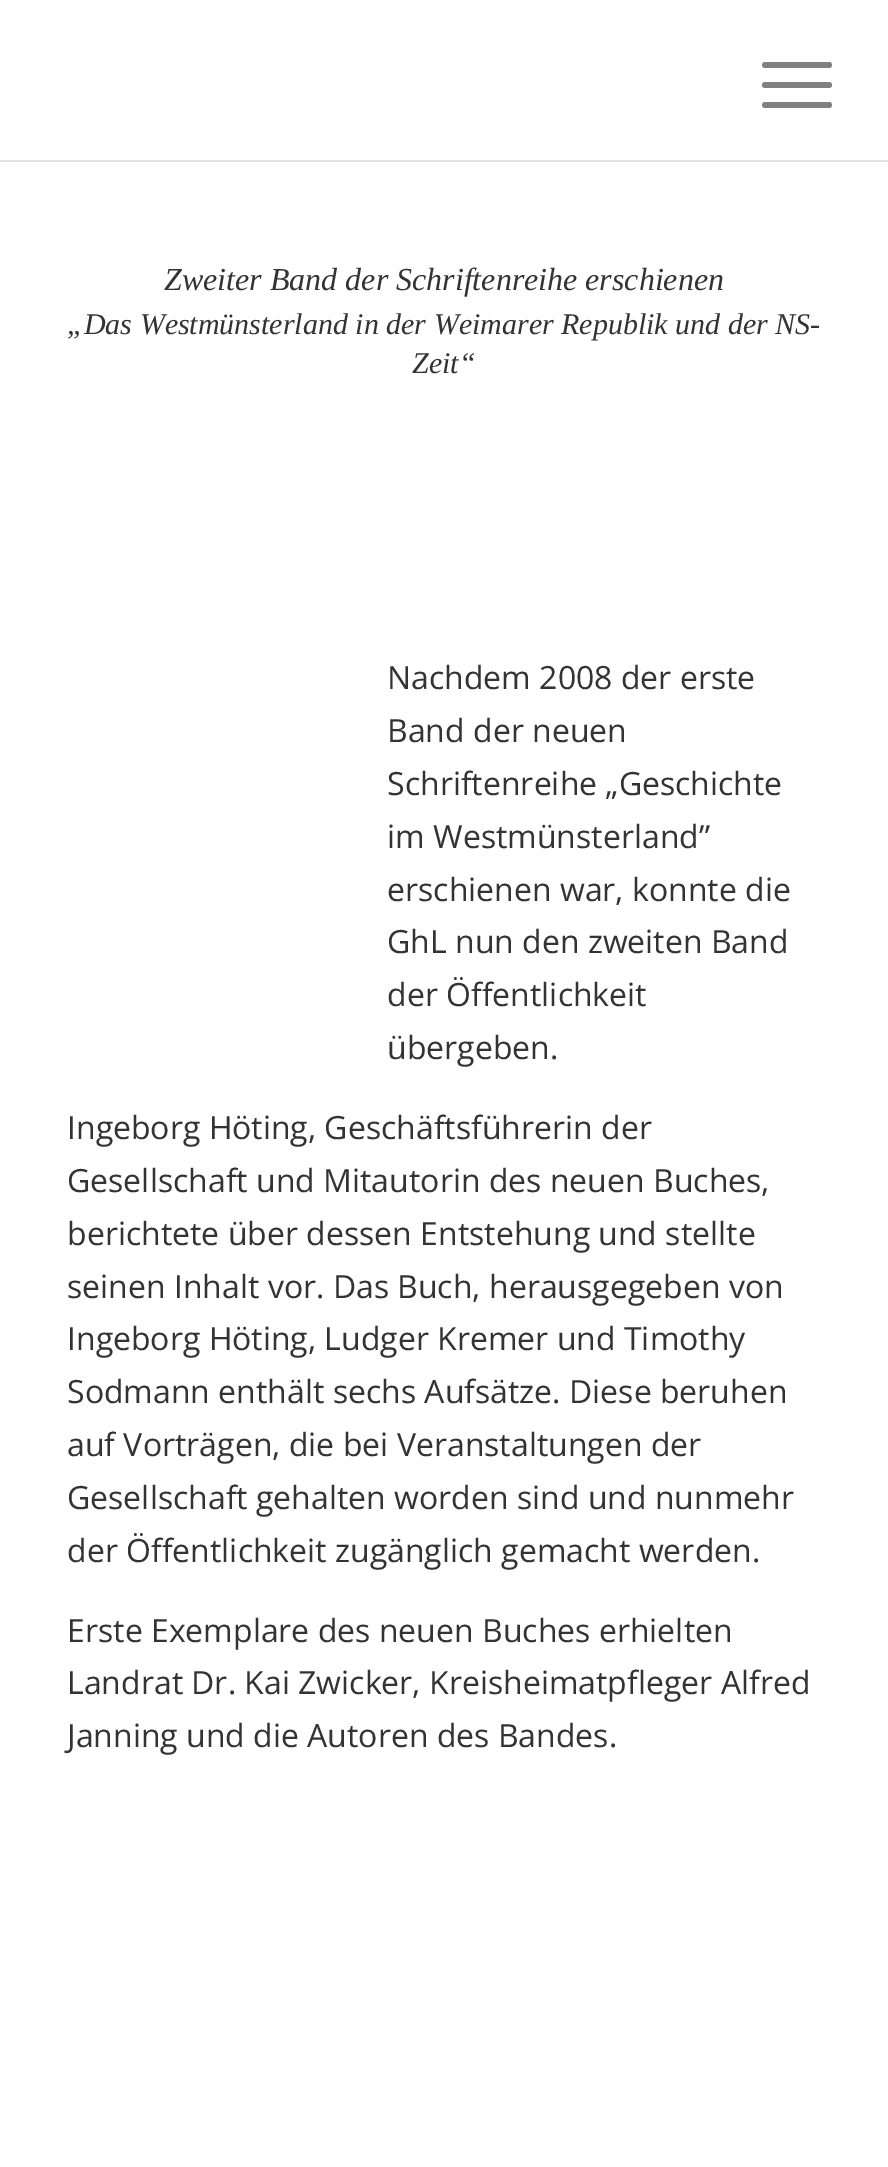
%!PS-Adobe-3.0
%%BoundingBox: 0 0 888 2167
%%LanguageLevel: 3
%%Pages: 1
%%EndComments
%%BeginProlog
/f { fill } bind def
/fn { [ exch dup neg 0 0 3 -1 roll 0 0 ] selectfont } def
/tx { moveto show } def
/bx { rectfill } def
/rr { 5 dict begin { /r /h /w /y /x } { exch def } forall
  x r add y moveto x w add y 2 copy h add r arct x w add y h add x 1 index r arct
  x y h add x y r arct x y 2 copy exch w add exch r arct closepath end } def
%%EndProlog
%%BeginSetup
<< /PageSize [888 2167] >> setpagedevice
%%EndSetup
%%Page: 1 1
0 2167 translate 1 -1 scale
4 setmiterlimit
1 setgray
0 0 888 2167 bx
0.882 setgray
0 160 888 2 bx
0.502 setgray
762 82 70 6 3 rr f
762 62 70 6 3 rr f
762 102 70 6 3 rr f
/LiberationSerif-Italic 32 fn
0.2 setgray
(Zweiter Band der Schriftenreihe erschienen) 164 290 tx
/LiberationSerif-Italic 30 fn
(„Das Westmünsterland in der Weimarer Republik und der NS-) 67 334 tx
(Zeit“) 412 373 tx
/OpenSans-Regular 32 fn
(Nachdem 2008 der erste) 387 689 tx
(Band der neuen) 387 742 tx
(Schriftenreihe „Geschichte) 387 795 tx
(im Westmünsterland”) 387 848 tx
(erschienen war, konnte die) 387 901 tx
(GhL nun den zweiten Band) 387 953 tx
(der Öffentlichkeit) 387 1006 tx
(übergeben.) 387 1059 tx
(Ingeborg Höting, Geschäftsführerin der) 67 1139 tx
(Gesellschaft und Mitautorin des neuen Buches,) 67 1192 tx
(berichtete über dessen Entstehung und stellte) 67 1245 tx
(seinen Inhalt vor. Das Buch, herausgegeben von) 67 1298 tx
(Ingeborg Höting, Ludger Kremer und Timothy) 67 1350 tx
(Sodmann enthält sechs Aufsätze. Diese beruhen) 67 1403 tx
(auf Vorträgen, die bei Veranstaltungen der) 67 1456 tx
(Gesellschaft gehalten worden sind und nunmehr) 67 1509 tx
(der Öffentlichkeit zugänglich gemacht werden.) 67 1562 tx
(Erste Exemplare des neuen Buches erhielten) 67 1642 tx
(Landrat Dr. Kai Zwicker, Kreisheimatpfleger Alfred) 67 1694 tx
(Janning und die Autoren des Bandes.) 67 1747 tx
showpage
%%EOF
